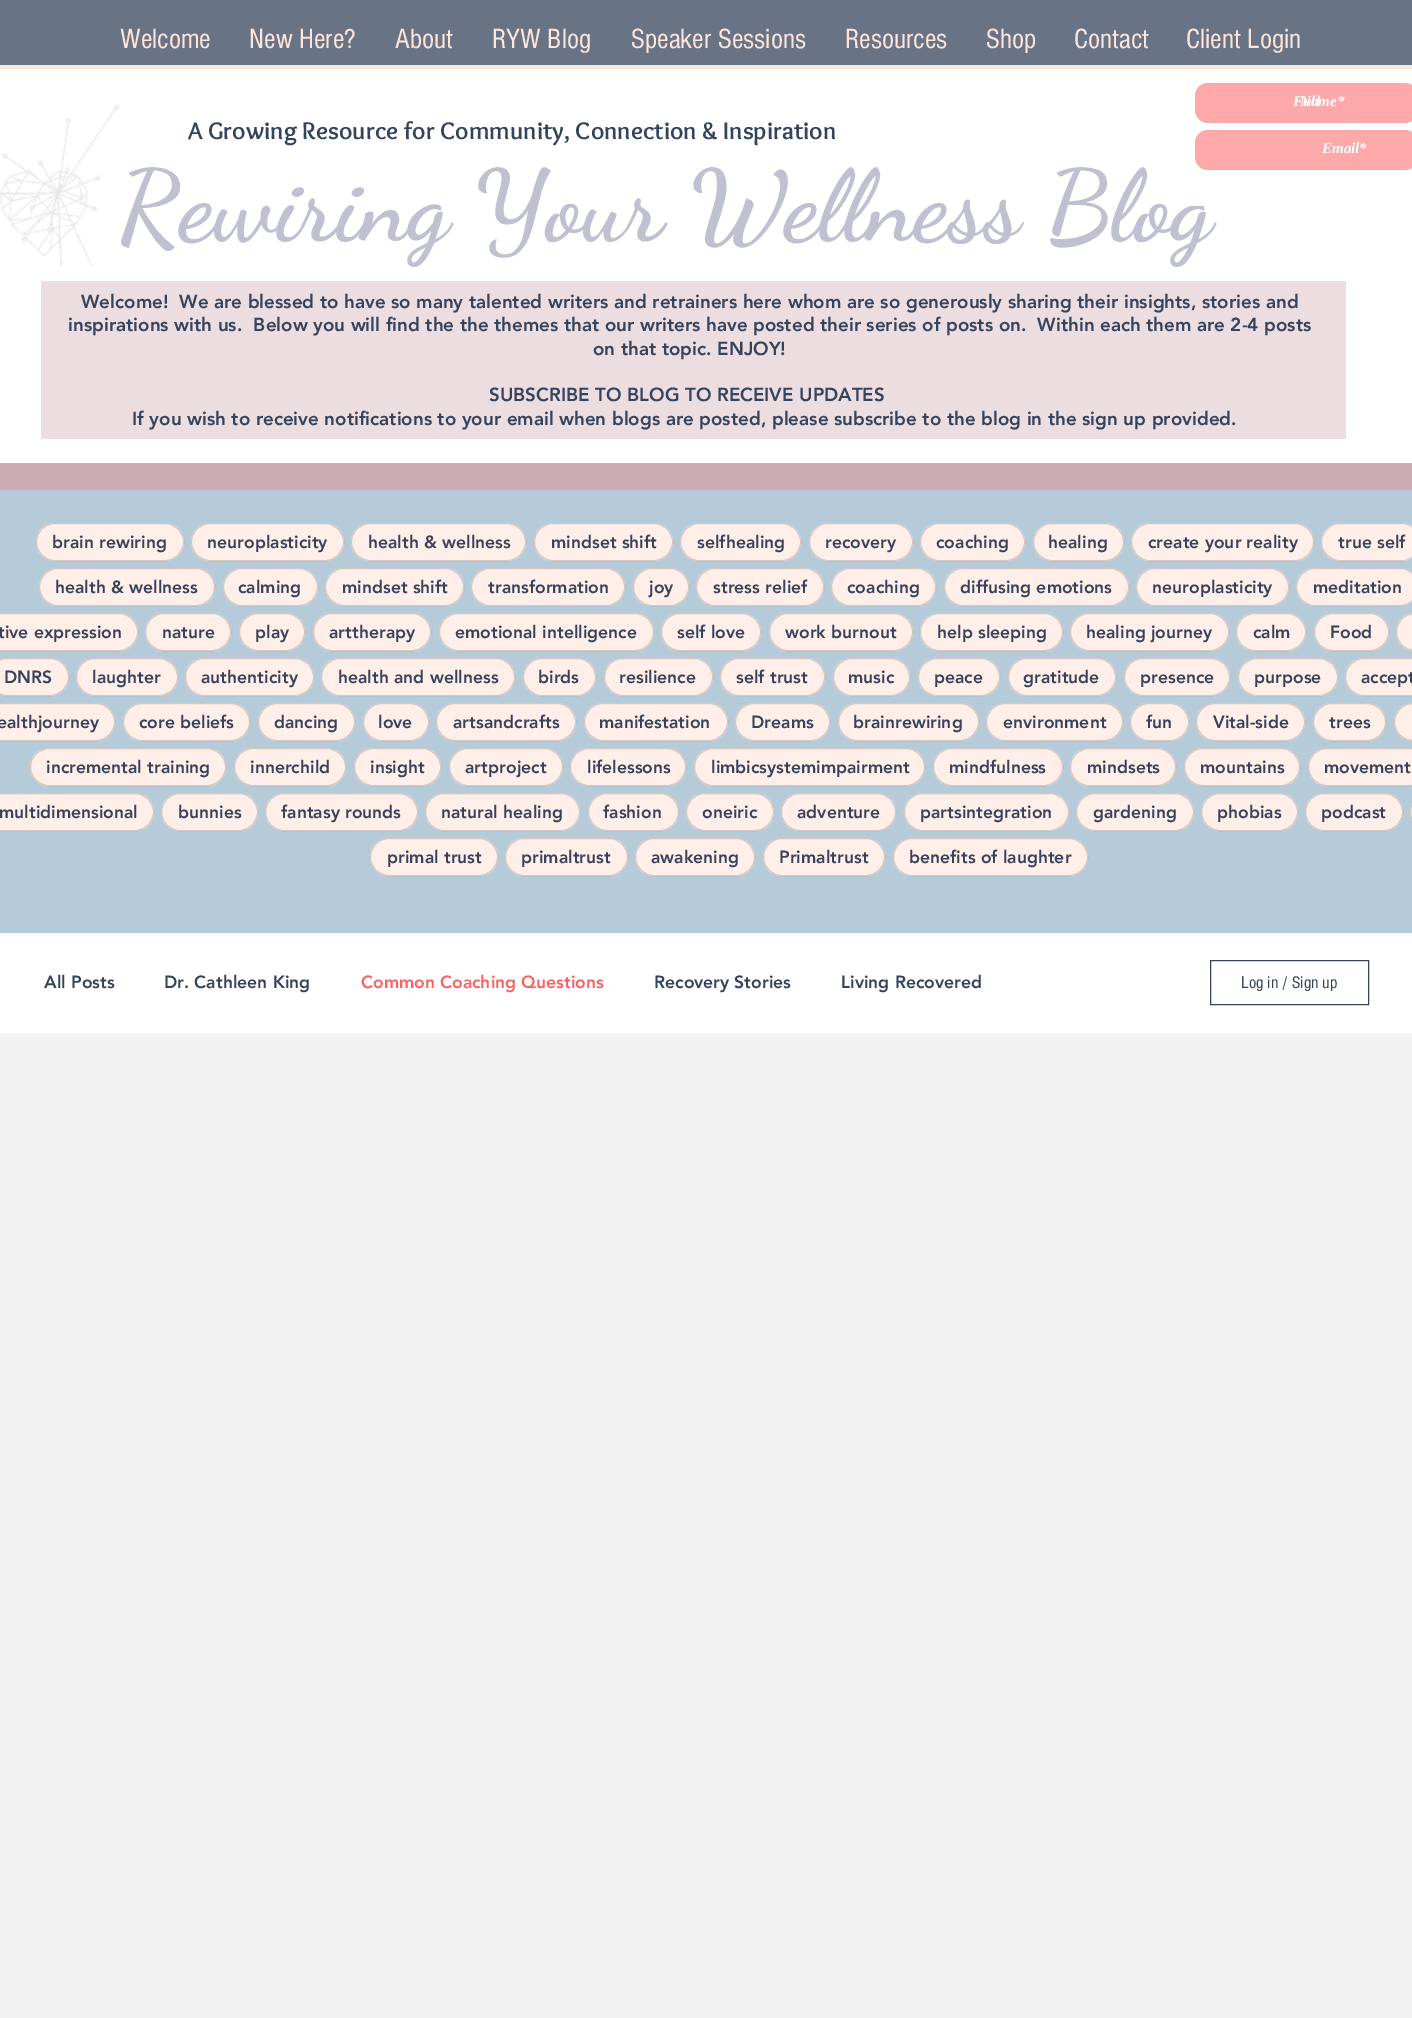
%!PS-Adobe-3.0
%%BoundingBox: 0 0 1412 2018
%%LanguageLevel: 3
%%Pages: 1
%%EndComments
%%BeginProlog
/m { moveto } bind def
/l { lineto } bind def
/c { curveto } bind def
/h { closepath } bind def
/f { fill } bind def
/S { stroke } bind def
/fn { [ exch dup neg 0 0 3 -1 roll 0 0 ] selectfont } def
/tx { moveto show } def
/bx { rectfill } def
/al { dup .setfillconstantalpha .setstrokeconstantalpha } def
/ci { newpath 0 360 arc closepath } def
/rr { 5 dict begin { /r /h /w /y /x } { exch def } forall
  x r add y moveto x w add y 2 copy h add r arct x w add y h add x 1 index r arct
  x y h add x y r arct x y 2 copy exch w add exch r arct closepath end } def
/im { 5 dict begin { /h /w /y /x /name } { exch def } forall
  gsave x y translate w h scale
  w h 8 [w 0 0 h 0 0] name (r) file false 3 colorimage grestore end } def
%%EndProlog
%%BeginSetup
<< /PageSize [1412 2018] /PageUsesTransparency true >> setpagedevice
%%EndSetup
%%Page: 1 1
0 .pushpdf14devicefilter
0 2018 translate 1 -1 scale
4 setmiterlimit
0.655 0.824 0.867 setrgbcolor
0 0 1412 2018 bx
0.412 0.451 0.525 setrgbcolor
0 0 1412 65 bx
1 0.898 0.851 setrgbcolor
0 65 1412 4 bx
/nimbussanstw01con-Regular 28.75 fn
(Welcome) 120 48 tx
(New Here?) 249 48 tx
(About) 395 48 tx
(RYW Blog) 492 48 tx
(Speaker Sessions) 631 48 tx
(Resources) 845 48 tx
(Shop) 986 48 tx
(Contact) 1074 48 tx
(Client Login) 1186 48 tx
1 setgray
0 69 1412 394 bx
(image0.raw) 0 105 119 161 im
/Overlock-Bold 25 fn
0.208 0.263 0.365 setrgbcolor
(A Growing Resource for Community, Connection & Inspiration) 188 139 tx
/DancingScript-Bold 100 fn
0.749 0.757 0.82 setrgbcolor
(Rewiring Your Wellness Blog) 118 239 tx
1 setgray
1190 204 14 2 bx
0.996 0.663 0.663 setrgbcolor
1195 83 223 40 13 rr f
/LiberationSerif-BoldItalic 15 fn
1 setgray
(Full) 1293 106 tx
(Name*) 1300 106 tx
0.996 0.663 0.663 setrgbcolor
1195 130 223 40 13 rr f
1 setgray
(Email*) 1322 153 tx
0.922 0.867 0.878 setrgbcolor
41 281 1305 158 bx
/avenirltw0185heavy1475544-Black 18.75 fn
0.208 0.263 0.365 setrgbcolor
(Welcome!  We are blessed to have so many talented writers and retrainers here whom are so generously sharing their insights, stories and) 81 308 tx
(inspirations with us.  Below you will find the the themes that our writers have posted their series of posts on.  Within each them are 2-4 posts) 68 331 tx
(on that topic. ENJOY!) 593 355 tx
(SUBSCRIBE TO BLOG TO RECEIVE UPDATES) 489 401 tx
(If you wish to receive notifications to your email when blogs are posted, please subscribe to the blog in the sign up provided.) 132 425 tx
0.808 0.675 0.71 setrgbcolor
0 463 1412 27 bx
0.714 0.796 0.855 setrgbcolor
0 490 1412 441 bx
1 0.937 0.91 setrgbcolor
36 523 148 38 19 rr f
0.2 al
0.18 setgray
36.5 523.5 147 37 18.5 rr S
/avenirltw0185heavy1475544-Black 17.5 fn
1 al
0.208 0.263 0.365 setrgbcolor
(brain rewiring) 52 548 tx
1 0.937 0.91 setrgbcolor
191 523 153 38 19 rr f
0.2 al
0.18 setgray
191.5 523.5 152 37 18.5 rr S
1 al
0.208 0.263 0.365 setrgbcolor
(neuroplasticity) 207 548 tx
1 0.937 0.91 setrgbcolor
351 523 175 38 19 rr f
0.2 al
0.18 setgray
351.5 523.5 174 37 18.5 rr S
1 al
0.208 0.263 0.365 setrgbcolor
(health & wellness) 368 548 tx
1 0.937 0.91 setrgbcolor
534 523 139 38 19 rr f
0.2 al
0.18 setgray
534.5 523.5 138 37 18.5 rr S
1 al
0.208 0.263 0.365 setrgbcolor
(mindset shift) 551 548 tx
1 0.937 0.91 setrgbcolor
680 523 121 38 19 rr f
0.2 al
0.18 setgray
680.5 523.5 120 37 18.5 rr S
1 al
0.208 0.263 0.365 setrgbcolor
(selfhealing) 697 548 tx
1 0.937 0.91 setrgbcolor
809 523 104 38 19 rr f
0.2 al
0.18 setgray
809.5 523.5 103 37 18.5 rr S
1 al
0.208 0.263 0.365 setrgbcolor
(recovery) 825 548 tx
1 0.937 0.91 setrgbcolor
920 523 105 38 19 rr f
0.2 al
0.18 setgray
920.5 523.5 104 37 18.5 rr S
1 al
0.208 0.263 0.365 setrgbcolor
(coaching) 936 548 tx
1 0.937 0.91 setrgbcolor
1033 523 91 38 19 rr f
0.2 al
0.18 setgray
1033.5 523.5 90 37 18.5 rr S
1 al
0.208 0.263 0.365 setrgbcolor
(healing) 1048 548 tx
1 0.937 0.91 setrgbcolor
1131 523 183 38 19 rr f
0.2 al
0.18 setgray
1131.5 523.5 182 37 18.5 rr S
1 al
0.208 0.263 0.365 setrgbcolor
(create your reality) 1148 548 tx
1 0.937 0.91 setrgbcolor
1321 523 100 38 19 rr f
0.2 al
0.18 setgray
1321.5 523.5 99 37 18.5 rr S
1 al
0.208 0.263 0.365 setrgbcolor
(true self) 1338 548 tx
1 0.937 0.91 setrgbcolor
39 568 176 38 19 rr f
0.2 al
0.18 setgray
39.5 568.5 175 37 18.5 rr S
1 al
0.208 0.263 0.365 setrgbcolor
(health & wellness) 55 593 tx
1 0.937 0.91 setrgbcolor
223 568 95 38 19 rr f
0.2 al
0.18 setgray
223.5 568.5 94 37 18.5 rr S
1 al
0.208 0.263 0.365 setrgbcolor
(calming) 238 593 tx
1 0.937 0.91 setrgbcolor
325 568 139 38 19 rr f
0.2 al
0.18 setgray
325.5 568.5 138 37 18.5 rr S
1 al
0.208 0.263 0.365 setrgbcolor
(mindset shift) 342 593 tx
1 0.937 0.91 setrgbcolor
471 568 154 38 19 rr f
0.2 al
0.18 setgray
471.5 568.5 153 37 18.5 rr S
1 al
0.208 0.263 0.365 setrgbcolor
(transformation) 488 593 tx
1 0.937 0.91 setrgbcolor
633 568 56 38 19 rr f
0.2 al
0.18 setgray
633.5 568.5 55 37 18.5 rr S
1 al
0.208 0.263 0.365 setrgbcolor
(joy) 649 593 tx
1 0.937 0.91 setrgbcolor
696 568 128 38 19 rr f
0.2 al
0.18 setgray
696.5 568.5 127 37 18.5 rr S
1 al
0.208 0.263 0.365 setrgbcolor
(stress relief) 713 593 tx
1 0.937 0.91 setrgbcolor
831 568 105 38 19 rr f
0.2 al
0.18 setgray
831.5 568.5 104 37 18.5 rr S
1 al
0.208 0.263 0.365 setrgbcolor
(coaching) 847 593 tx
1 0.937 0.91 setrgbcolor
944 568 185 38 19 rr f
0.2 al
0.18 setgray
944.5 568.5 184 37 18.5 rr S
1 al
0.208 0.263 0.365 setrgbcolor
(diffusing emotions) 960 593 tx
1 0.937 0.91 setrgbcolor
1136 568 153 38 19 rr f
0.2 al
0.18 setgray
1136.5 568.5 152 37 18.5 rr S
1 al
0.208 0.263 0.365 setrgbcolor
(neuroplasticity) 1152 593 tx
1 0.937 0.91 setrgbcolor
1296 568 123 38 19 rr f
0.2 al
0.18 setgray
1296.5 568.5 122 37 18.5 rr S
1 al
0.208 0.263 0.365 setrgbcolor
(meditation) 1313 593 tx
1 0.937 0.91 setrgbcolor
0 613 m 119 613 l 129.5 613 138 621.5 138 632 c 138 642.5 129.5 651 119 651 c 0 651 l h f
0.2 al
0.18 setgray
-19.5 613.5 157 37 18.5 rr S
1 al
0.208 0.263 0.365 setrgbcolor
(tive expression) -2 638 tx
1 0.937 0.91 setrgbcolor
145 613 86 38 19 rr f
0.2 al
0.18 setgray
145.5 613.5 85 37 18.5 rr S
1 al
0.208 0.263 0.365 setrgbcolor
(nature) 162 638 tx
1 0.937 0.91 setrgbcolor
239 613 66 38 19 rr f
0.2 al
0.18 setgray
239.5 613.5 65 37 18.5 rr S
1 al
0.208 0.263 0.365 setrgbcolor
(play) 255 638 tx
1 0.937 0.91 setrgbcolor
313 613 118 38 19 rr f
0.2 al
0.18 setgray
313.5 613.5 117 37 18.5 rr S
1 al
0.208 0.263 0.365 setrgbcolor
(arttherapy) 329 638 tx
1 0.937 0.91 setrgbcolor
439 613 215 38 19 rr f
0.2 al
0.18 setgray
439.5 613.5 214 37 18.5 rr S
1 al
0.208 0.263 0.365 setrgbcolor
(emotional intelligence) 455 638 tx
1 0.937 0.91 setrgbcolor
661 613 100 38 19 rr f
0.2 al
0.18 setgray
661.5 613.5 99 37 18.5 rr S
1 al
0.208 0.263 0.365 setrgbcolor
(self love) 677 638 tx
1 0.937 0.91 setrgbcolor
769 613 144 38 19 rr f
0.2 al
0.18 setgray
769.5 613.5 143 37 18.5 rr S
1 al
0.208 0.263 0.365 setrgbcolor
(work burnout) 785 638 tx
1 0.937 0.91 setrgbcolor
920 613 143 38 19 rr f
0.2 al
0.18 setgray
920.5 613.5 142 37 18.5 rr S
1 al
0.208 0.263 0.365 setrgbcolor
(help sleeping) 937 638 tx
1 0.937 0.91 setrgbcolor
1070 613 159 38 19 rr f
0.2 al
0.18 setgray
1070.5 613.5 158 37 18.5 rr S
1 al
0.208 0.263 0.365 setrgbcolor
(healing journey) 1086 638 tx
1 0.937 0.91 setrgbcolor
1236 613 70 38 19 rr f
0.2 al
0.18 setgray
1236.5 613.5 69 37 18.5 rr S
1 al
0.208 0.263 0.365 setrgbcolor
(calm) 1253 638 tx
1 0.937 0.91 setrgbcolor
1314 613 75 38 19 rr f
0.2 al
0.18 setgray
1314.5 613.5 74 37 18.5 rr S
1 al
0.208 0.263 0.365 setrgbcolor
(Food) 1330 638 tx
1 0.937 0.91 setrgbcolor
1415 613 m 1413 613 l 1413 651 l 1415 651 l 1404.5 651 1396 642.5 1396 632 c 1396 621.5 1404.5 613 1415 613 c h f
0.2 al
0.18 setgray
1396.5 613.5 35 37 18.5 rr S
1 al
1 0.937 0.91 setrgbcolor
-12 658 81 38 19 rr f
0.2 al
0.18 setgray
-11.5 658.5 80 37 18.5 rr S
1 al
0.208 0.263 0.365 setrgbcolor
(DNRS) 4 683 tx
1 0.937 0.91 setrgbcolor
76 658 102 38 19 rr f
0.2 al
0.18 setgray
76.5 658.5 101 37 18.5 rr S
1 al
0.208 0.263 0.365 setrgbcolor
(laughter) 92 683 tx
1 0.937 0.91 setrgbcolor
185 658 129 38 19 rr f
0.2 al
0.18 setgray
185.5 658.5 128 37 18.5 rr S
1 al
0.208 0.263 0.365 setrgbcolor
(authenticity) 201 683 tx
1 0.937 0.91 setrgbcolor
321 658 194 38 19 rr f
0.2 al
0.18 setgray
321.5 658.5 193 37 18.5 rr S
1 al
0.208 0.263 0.365 setrgbcolor
(health and wellness) 338 683 tx
1 0.937 0.91 setrgbcolor
523 658 73 38 19 rr f
0.2 al
0.18 setgray
523.5 658.5 72 37 18.5 rr S
1 al
0.208 0.263 0.365 setrgbcolor
(birds) 538 683 tx
1 0.937 0.91 setrgbcolor
604 658 109 38 19 rr f
0.2 al
0.18 setgray
604.5 658.5 108 37 18.5 rr S
1 al
0.208 0.263 0.365 setrgbcolor
(resilience) 619 683 tx
1 0.937 0.91 setrgbcolor
720 658 105 38 19 rr f
0.2 al
0.18 setgray
720.5 658.5 104 37 18.5 rr S
1 al
0.208 0.263 0.365 setrgbcolor
(self trust) 736 683 tx
1 0.937 0.91 setrgbcolor
833 658 77 38 19 rr f
0.2 al
0.18 setgray
833.5 658.5 76 37 18.5 rr S
1 al
0.208 0.263 0.365 setrgbcolor
(music) 848 683 tx
1 0.937 0.91 setrgbcolor
918 658 82 38 19 rr f
0.2 al
0.18 setgray
918.5 658.5 81 37 18.5 rr S
1 al
0.208 0.263 0.365 setrgbcolor
(peace) 934 683 tx
1 0.937 0.91 setrgbcolor
1008 658 108 38 19 rr f
0.2 al
0.18 setgray
1008.5 658.5 107 37 18.5 rr S
1 al
0.208 0.263 0.365 setrgbcolor
(gratitude) 1023 683 tx
1 0.937 0.91 setrgbcolor
1124 658 106 38 19 rr f
0.2 al
0.18 setgray
1124.5 658.5 105 37 18.5 rr S
1 al
0.208 0.263 0.365 setrgbcolor
(presence) 1140 683 tx
1 0.937 0.91 setrgbcolor
1238 658 100 38 19 rr f
0.2 al
0.18 setgray
1238.5 658.5 99 37 18.5 rr S
1 al
0.208 0.263 0.365 setrgbcolor
(purpose) 1254 683 tx
1 0.937 0.91 setrgbcolor
1364 658 m 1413 658 l 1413 696 l 1364 696 l 1353.5 696 1345 687.5 1345 677 c 1345 666.5 1353.5 658 1364 658 c h f
0.2 al
0.18 setgray
1345.5 658.5 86 37 18.5 rr S
1 al
0.208 0.263 0.365 setrgbcolor
(accept) 1361 683 tx
1 0.937 0.91 setrgbcolor
0 703 m 96 703 l 106.5 703 115 711.5 115 722 c 115 732.5 106.5 741 96 741 c 0 741 l h f
0.2 al
0.18 setgray
-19.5 703.5 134 37 18.5 rr S
1 al
0.208 0.263 0.365 setrgbcolor
(ealthjourney) -3 728 tx
1 0.937 0.91 setrgbcolor
123 703 127 38 19 rr f
0.2 al
0.18 setgray
123.5 703.5 126 37 18.5 rr S
1 al
0.208 0.263 0.365 setrgbcolor
(core beliefs) 139 728 tx
1 0.937 0.91 setrgbcolor
258 703 97 38 19 rr f
0.2 al
0.18 setgray
258.5 703.5 96 37 18.5 rr S
1 al
0.208 0.263 0.365 setrgbcolor
(dancing) 274 728 tx
1 0.937 0.91 setrgbcolor
363 703 66 38 19 rr f
0.2 al
0.18 setgray
363.5 703.5 65 37 18.5 rr S
1 al
0.208 0.263 0.365 setrgbcolor
(love) 378 728 tx
1 0.937 0.91 setrgbcolor
436 703 140 38 19 rr f
0.2 al
0.18 setgray
436.5 703.5 139 37 18.5 rr S
1 al
0.208 0.263 0.365 setrgbcolor
(artsandcrafts) 453 728 tx
1 0.937 0.91 setrgbcolor
584 703 144 38 19 rr f
0.2 al
0.18 setgray
584.5 703.5 143 37 18.5 rr S
1 al
0.208 0.263 0.365 setrgbcolor
(manifestation) 599 728 tx
1 0.937 0.91 setrgbcolor
735 703 95 38 19 rr f
0.2 al
0.18 setgray
735.5 703.5 94 37 18.5 rr S
1 al
0.208 0.263 0.365 setrgbcolor
(Dreams) 751 728 tx
1 0.937 0.91 setrgbcolor
838 703 141 38 19 rr f
0.2 al
0.18 setgray
838.5 703.5 140 37 18.5 rr S
1 al
0.208 0.263 0.365 setrgbcolor
(brainrewiring) 853 728 tx
1 0.937 0.91 setrgbcolor
986 703 137 38 19 rr f
0.2 al
0.18 setgray
986.5 703.5 136 37 18.5 rr S
1 al
0.208 0.263 0.365 setrgbcolor
(environment) 1003 728 tx
1 0.937 0.91 setrgbcolor
1130 703 59 38 19 rr f
0.2 al
0.18 setgray
1130.5 703.5 58 37 18.5 rr S
1 al
0.208 0.263 0.365 setrgbcolor
(fun) 1146 728 tx
1 0.937 0.91 setrgbcolor
1196 703 109 38 19 rr f
0.2 al
0.18 setgray
1196.5 703.5 108 37 18.5 rr S
1 al
0.208 0.263 0.365 setrgbcolor
(Vital-side) 1213 728 tx
1 0.937 0.91 setrgbcolor
1313 703 73 38 19 rr f
0.2 al
0.18 setgray
1313.5 703.5 72 37 18.5 rr S
1 al
0.208 0.263 0.365 setrgbcolor
(trees) 1329 728 tx
1 0.937 0.91 setrgbcolor
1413 703 m 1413 741 l 1402.5 741 1394 732.5 1394 722 c 1394 711.5 1402.5 703 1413 703 c h f
0.2 al
0.18 setgray
1413 722 18.5 ci S
1 al
1 0.937 0.91 setrgbcolor
30 748 196 38 19 rr f
0.2 al
0.18 setgray
30.5 748.5 195 37 18.5 rr S
1 al
0.208 0.263 0.365 setrgbcolor
(incremental training) 46 773 tx
1 0.937 0.91 setrgbcolor
234 748 112 38 19 rr f
0.2 al
0.18 setgray
234.5 748.5 111 37 18.5 rr S
1 al
0.208 0.263 0.365 setrgbcolor
(innerchild) 250 773 tx
1 0.937 0.91 setrgbcolor
354 748 87 38 19 rr f
0.2 al
0.18 setgray
354.5 748.5 86 37 18.5 rr S
1 al
0.208 0.263 0.365 setrgbcolor
(insight) 370 773 tx
1 0.937 0.91 setrgbcolor
449 748 114 38 19 rr f
0.2 al
0.18 setgray
449.5 748.5 113 37 18.5 rr S
1 al
0.208 0.263 0.365 setrgbcolor
(artproject) 465 773 tx
1 0.937 0.91 setrgbcolor
570 748 116 38 19 rr f
0.2 al
0.18 setgray
570.5 748.5 115 37 18.5 rr S
1 al
0.208 0.263 0.365 setrgbcolor
(lifelessons) 587 773 tx
1 0.937 0.91 setrgbcolor
694 748 231 38 19 rr f
0.2 al
0.18 setgray
694.5 748.5 230 37 18.5 rr S
1 al
0.208 0.263 0.365 setrgbcolor
(limbicsystemimpairment) 711 773 tx
1 0.937 0.91 setrgbcolor
933 748 130 38 19 rr f
0.2 al
0.18 setgray
933.5 748.5 129 37 18.5 rr S
1 al
0.208 0.263 0.365 setrgbcolor
(mindfulness) 949 773 tx
1 0.937 0.91 setrgbcolor
1070 748 106 38 19 rr f
0.2 al
0.18 setgray
1070.5 748.5 105 37 18.5 rr S
1 al
0.208 0.263 0.365 setrgbcolor
(mindsets) 1087 773 tx
1 0.937 0.91 setrgbcolor
1184 748 116 38 19 rr f
0.2 al
0.18 setgray
1184.5 748.5 115 37 18.5 rr S
1 al
0.208 0.263 0.365 setrgbcolor
(mountains) 1200 773 tx
1 0.937 0.91 setrgbcolor
1308 748 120 38 19 rr f
0.2 al
0.18 setgray
1308.5 748.5 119 37 18.5 rr S
1 al
0.208 0.263 0.365 setrgbcolor
(movement) 1324 773 tx
1 0.937 0.91 setrgbcolor
-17 793 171 38 19 rr f
0.2 al
0.18 setgray
-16.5 793.5 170 37 18.5 rr S
1 al
0.208 0.263 0.365 setrgbcolor
(multidimensional) -1 818 tx
1 0.937 0.91 setrgbcolor
161 793 97 38 19 rr f
0.2 al
0.18 setgray
161.5 793.5 96 37 18.5 rr S
1 al
0.208 0.263 0.365 setrgbcolor
(bunnies) 178 818 tx
1 0.937 0.91 setrgbcolor
265 793 153 38 19 rr f
0.2 al
0.18 setgray
265.5 793.5 152 37 18.5 rr S
1 al
0.208 0.263 0.365 setrgbcolor
(fantasy rounds) 281 818 tx
1 0.937 0.91 setrgbcolor
425 793 155 38 19 rr f
0.2 al
0.18 setgray
425.5 793.5 154 37 18.5 rr S
1 al
0.208 0.263 0.365 setrgbcolor
(natural healing) 441 818 tx
1 0.937 0.91 setrgbcolor
588 793 91 38 19 rr f
0.2 al
0.18 setgray
588.5 793.5 90 37 18.5 rr S
1 al
0.208 0.263 0.365 setrgbcolor
(fashion) 603 818 tx
1 0.937 0.91 setrgbcolor
686 793 88 38 19 rr f
0.2 al
0.18 setgray
686.5 793.5 87 37 18.5 rr S
1 al
0.208 0.263 0.365 setrgbcolor
(oneiric) 702 818 tx
1 0.937 0.91 setrgbcolor
781 793 115 38 19 rr f
0.2 al
0.18 setgray
781.5 793.5 114 37 18.5 rr S
1 al
0.208 0.263 0.365 setrgbcolor
(adventure) 797 818 tx
1 0.937 0.91 setrgbcolor
904 793 165 38 19 rr f
0.2 al
0.18 setgray
904.5 793.5 164 37 18.5 rr S
1 al
0.208 0.263 0.365 setrgbcolor
(partsintegration) 920 818 tx
1 0.937 0.91 setrgbcolor
1076 793 118 38 19 rr f
0.2 al
0.18 setgray
1076.5 793.5 117 37 18.5 rr S
1 al
0.208 0.263 0.365 setrgbcolor
(gardening) 1093 818 tx
1 0.937 0.91 setrgbcolor
1201 793 97 38 19 rr f
0.2 al
0.18 setgray
1201.5 793.5 96 37 18.5 rr S
1 al
0.208 0.263 0.365 setrgbcolor
(phobias) 1217 818 tx
1 0.937 0.91 setrgbcolor
1305 793 98 38 19 rr f
0.2 al
0.18 setgray
1305.5 793.5 97 37 18.5 rr S
1 al
0.208 0.263 0.365 setrgbcolor
(podcast) 1321 818 tx
1 0.937 0.91 setrgbcolor
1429 793 m 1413 793 l 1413 831 l 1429 831 l 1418.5 831 1410 822.5 1410 812 c 1410 801.5 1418.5 793 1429 793 c h f
0.2 al
0.18 setgray
1410.5 793.5 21 37 18.5 rr S
1 al
1 0.937 0.91 setrgbcolor
370 838 128 38 19 rr f
0.2 al
0.18 setgray
370.5 838.5 127 37 18.5 rr S
1 al
0.208 0.263 0.365 setrgbcolor
(primal trust) 387 863 tx
1 0.937 0.91 setrgbcolor
505 838 123 38 19 rr f
0.2 al
0.18 setgray
505.5 838.5 122 37 18.5 rr S
1 al
0.208 0.263 0.365 setrgbcolor
(primaltrust) 521 863 tx
1 0.937 0.91 setrgbcolor
635 838 120 38 19 rr f
0.2 al
0.18 setgray
635.5 838.5 119 37 18.5 rr S
1 al
0.208 0.263 0.365 setrgbcolor
(awakening) 651 863 tx
1 0.937 0.91 setrgbcolor
763 838 122 38 19 rr f
0.2 al
0.18 setgray
763.5 838.5 121 37 18.5 rr S
1 al
0.208 0.263 0.365 setrgbcolor
(Primaltrust) 779 863 tx
1 0.937 0.91 setrgbcolor
893 838 195 38 19 rr f
0.2 al
0.18 setgray
893.5 838.5 194 37 18.5 rr S
1 al
0.208 0.263 0.365 setrgbcolor
(benefits of laughter) 909 863 tx
0.949 setgray
0 1033 1412 985 bx
1 setgray
0 933 1412 100 bx
0.208 0.263 0.365 setrgbcolor
(All Posts) 44 988 tx
(Dr. Cathleen King) 164 988 tx
0.996 0.376 0.376 setrgbcolor
(Common Coaching Questions) 361 988 tx
0.208 0.263 0.365 setrgbcolor
(Recovery Stories) 654 988 tx
(Living Recovered) 841 988 tx
1210.5 960.5 158 44 rectstroke
/nimbussanstw01con-Regular 17.5 fn
(Log in / Sign up) 1241 988 tx
.poppdf14devicefilter showpage
%%EOF
